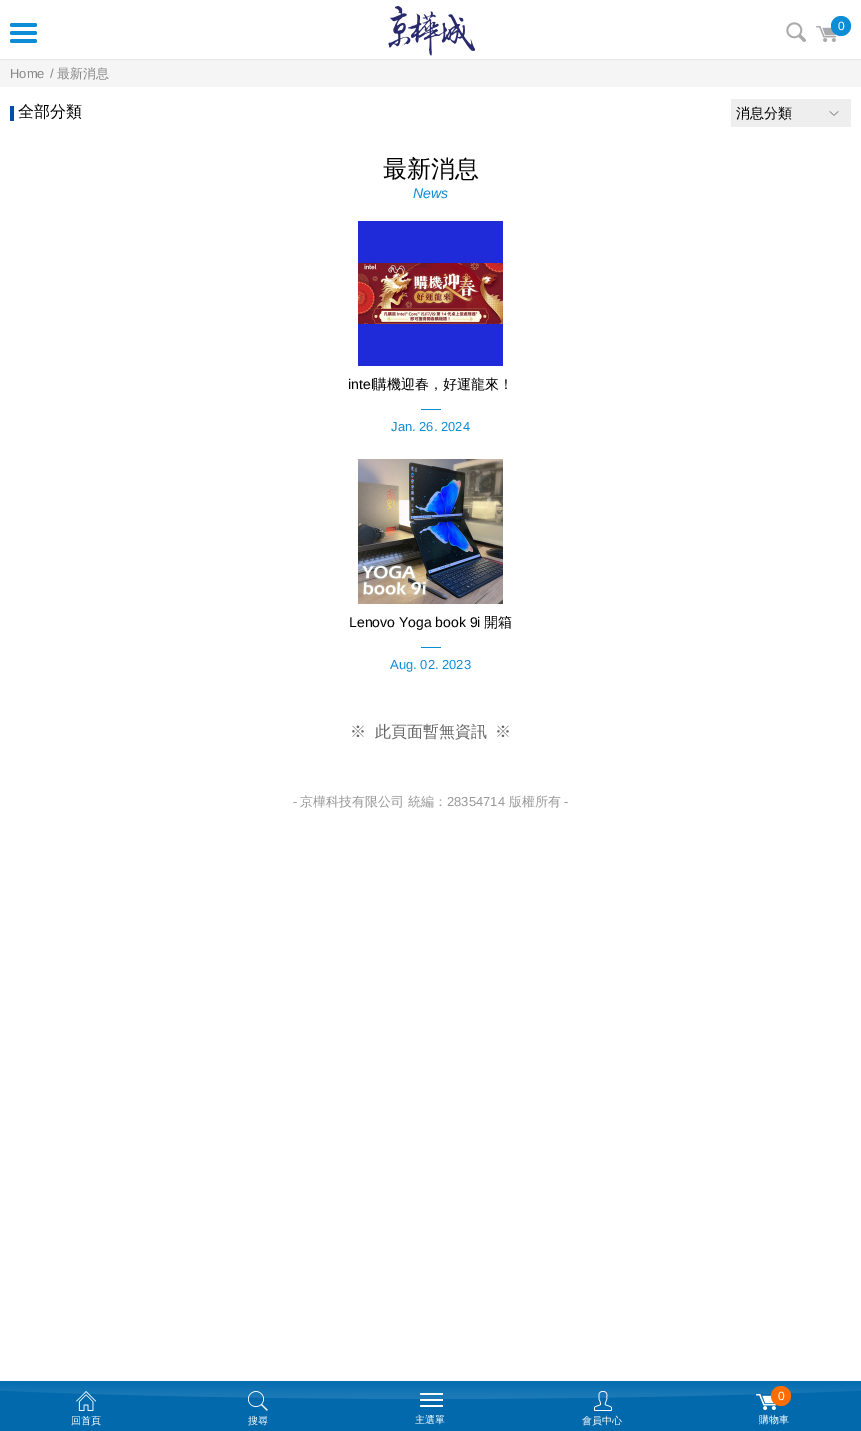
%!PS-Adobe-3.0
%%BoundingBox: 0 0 861 1431
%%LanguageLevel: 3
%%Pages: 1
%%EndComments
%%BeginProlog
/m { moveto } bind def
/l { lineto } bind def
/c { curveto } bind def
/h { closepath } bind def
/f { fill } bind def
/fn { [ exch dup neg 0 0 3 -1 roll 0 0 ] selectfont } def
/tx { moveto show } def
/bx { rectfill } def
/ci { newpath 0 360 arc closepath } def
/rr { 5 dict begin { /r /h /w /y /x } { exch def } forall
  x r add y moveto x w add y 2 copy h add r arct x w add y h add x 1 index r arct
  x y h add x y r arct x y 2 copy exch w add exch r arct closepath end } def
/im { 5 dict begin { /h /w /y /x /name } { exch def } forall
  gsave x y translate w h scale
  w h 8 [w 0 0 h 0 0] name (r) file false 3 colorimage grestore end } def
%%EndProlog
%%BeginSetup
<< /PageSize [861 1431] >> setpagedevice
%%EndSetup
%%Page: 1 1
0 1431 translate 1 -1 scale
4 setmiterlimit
1 setgray
0 0 861 1431 bx
0.902 setgray
0 59 861 1 bx
0.047 0.553 0.835 setrgbcolor
10 23 27 4 2 rr f
10 31 27 4 2 rr f
10 39 27 4 2 rr f
(image0.raw) 388 6 87 50 im
(image1.raw) 786 22 20 20 im
(image2.raw) 816 26 21 16 im
841 26 10 ci f
/LiberationSans-Regular 12 fn
1 setgray
(0) 838 30 tx
0.961 setgray
0 60 861 27 bx
/LiberationSans-Regular 13 fn
0.533 setgray
(Home) 10 78 tx
(/) 50 78 tx
/WenQuanYiZenHei-Medium 13 fn
(最新消息) 57 78 tx
0.008 0.314 0.655 setrgbcolor
10 106 4 15 bx
/WenQuanYiZenHei-Medium 16 fn
0 setgray
(全部分類) 18 117 tx
0.933 setgray
731 99 120 28 bx
/WenQuanYiZenHei-Medium 14 fn
0 setgray
(消息分類) 736 118 tx
(image3.raw) 829 111 10 5 im
/WenQuanYiZenHei-Medium 24 fn
(最新消息) 383 177 tx
/LiberationSans-Italic 14 fn
0.047 0.553 0.835 setrgbcolor
(News) 413 198 tx
(image4.raw) 358 221 145 145 im
/LiberationSans-Regular 14 fn
0 setgray
(intel) 348 389 tx
/WenQuanYiZenHei-Medium 14 fn
(購機迎春，好運龍來！) 373 389 tx
0.047 0.553 0.835 setrgbcolor
421 409 20 1 bx
/LiberationSans-Regular 13 fn
(Jan. 26. 2024) 391 431 tx
(image5.raw) 358 459 145 145 im
/LiberationSans-Regular 14 fn
0 setgray
(Lenovo Yoga book 9i) 349 627 tx
/WenQuanYiZenHei-Medium 14 fn
(開箱) 484 627 tx
0.047 0.553 0.835 setrgbcolor
421 647 20 1 bx
/LiberationSans-Regular 13 fn
(Aug. 02. 2023) 390 669 tx
/WenQuanYiZenHei-Medium 16 fn
0.4 setgray
(※) 350 737 tx
(此頁面暫無資訊) 375 737 tx
(※) 495 737 tx
/LiberationSans-Regular 13 fn
0.6 setgray
(-) 293 806 tx
/WenQuanYiZenHei-Medium 13 fn
(京樺科技有限公司 統編：) 300 806 tx
/LiberationSans-Regular 13 fn
(28354714) 447 806 tx
/WenQuanYiZenHei-Medium 13 fn
(版權所有) 509 806 tx
/LiberationSans-Regular 13 fn
(-) 564 806 tx
(image6.raw) 0 1381 861 50 im
(image7.raw) 76 1391 20 20 im
/WenQuanYiZenHei-Medium 10 fn
1 setgray
(回首頁) 71 1424 tx
(image8.raw) 248 1391 20 20 im
(搜尋) 248 1424 tx
421 1393 m 443 1393 l 443 1395 l 421 1395 l 420.5 1395 420 1394.5 420 1394 c 420 1393.5 420.5 1393 421 1393 c h f
421 1399 m 443 1399 l 443 1401 l 421 1401 l 420.5 1401 420 1400.5 420 1400 c 420 1399.5 420.5 1399 421 1399 c h f
421 1405 m 443 1405 l 443 1407 l 421 1407 l 420.5 1407 420 1406.5 420 1406 c 420 1405.5 420.5 1405 421 1405 c h f
(主選單) 415 1423 tx
(image9.raw) 594 1391 18 20 im
(會員中心) 582 1424 tx
(image10.raw) 756 1394 20 16 im
0.996 0.427 0.008 setrgbcolor
781 1396 10 ci f
/LiberationSans-Regular 12 fn
1 setgray
(0) 778 1400 tx
/WenQuanYiZenHei-Medium 10 fn
(購物車) 759 1423 tx
showpage
%%EOF
